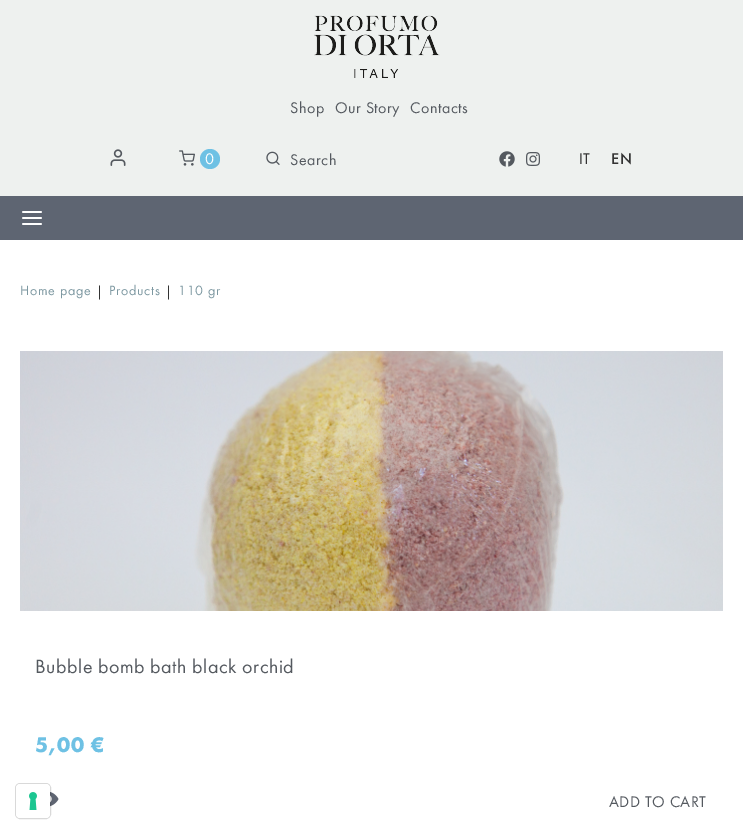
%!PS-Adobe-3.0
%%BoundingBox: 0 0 743 834
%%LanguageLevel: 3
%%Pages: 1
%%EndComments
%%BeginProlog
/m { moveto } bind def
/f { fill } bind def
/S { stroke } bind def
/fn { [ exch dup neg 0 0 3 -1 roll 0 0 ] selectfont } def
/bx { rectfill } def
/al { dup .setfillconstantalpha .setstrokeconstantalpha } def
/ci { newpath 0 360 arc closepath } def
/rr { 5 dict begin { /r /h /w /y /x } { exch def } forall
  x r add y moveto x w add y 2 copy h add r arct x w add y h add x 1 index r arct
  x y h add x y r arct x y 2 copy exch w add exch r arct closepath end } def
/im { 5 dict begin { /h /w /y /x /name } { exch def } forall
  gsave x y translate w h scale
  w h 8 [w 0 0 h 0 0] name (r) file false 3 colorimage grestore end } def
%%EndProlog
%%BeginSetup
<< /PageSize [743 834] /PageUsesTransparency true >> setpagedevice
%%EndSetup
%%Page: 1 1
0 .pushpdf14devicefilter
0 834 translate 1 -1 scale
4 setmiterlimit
1 setgray
0 0 743 834 bx
0.933 0.945 0.937 setrgbcolor
0 0 743 196 bx
(image0.raw) 314 15 126 63 im
/FuturaPT-Regular 16 fn
0.329 0.349 0.373 setrgbcolor
290 113 m 0.5 0 (Shop) ashow
335 113 m 0.5 0 (Our Story) ashow
410 113 m 0.5 0 (Contacts) ashow
(image1.raw) 110 149 16 17 im
(image2.raw) 179 150 16 16 im
0.431 0.757 0.894 setrgbcolor
210 159 10 ci f
1 setgray
205 164 m 0.5 0 (0) ashow
(image3.raw) 266 151 14 14 im
0.329 0.349 0.373 setrgbcolor
290 165 m 0.5 0 (Search) ashow
(image4.raw) 499 151 16 16 im
(image5.raw) 526 152 14 14 im
0.2 setgray
579 164 m 0.5 0 (IT) ashow
/FuturaPT-Medium 16 fn
611 164 m 0.5 0 (EN) ashow
0.369 0.396 0.447 setrgbcolor
0 196 743 44 bx
(image6.raw) 22 211 20 14 im
/FuturaPT-Regular 14 fn
0.49 0.596 0.631 setrgbcolor
20 295 m 0.75 0 (Home page) ashow
0.2 setgray
96 296 m 0.75 0 (|) ashow
0.49 0.596 0.631 setrgbcolor
109 295 m 0.75 0 (Products) ashow
0.2 setgray
165 296 m 0.75 0 (|) ashow
0.49 0.596 0.631 setrgbcolor
178 295 m 0.75 0 (110 gr) ashow
(image7.raw) 20 351 703 260 im
/FuturaPT-Regular 20 fn
0.329 0.349 0.373 setrgbcolor
35 673 m 0.5 0 (Bubble bomb bath black orchid) ashow
/FuturaPT-Bold 22 fn
0.431 0.757 0.894 setrgbcolor
35 752 m 1 0 (5,00 €) ashow
(image8.raw) 50 792 9 15 im
/FuturaPT-Regular 16 fn
0.329 0.349 0.373 setrgbcolor
609 807 m 0.5 0 (ADD TO CART) ashow
0.15 al
0 setgray
15.5 783.5 35 35 4.5 rr S
1 al
1 setgray
16 784 34 34 4 rr f
(image9.raw) 29 792 8 18 im
.poppdf14devicefilter showpage
%%EOF
